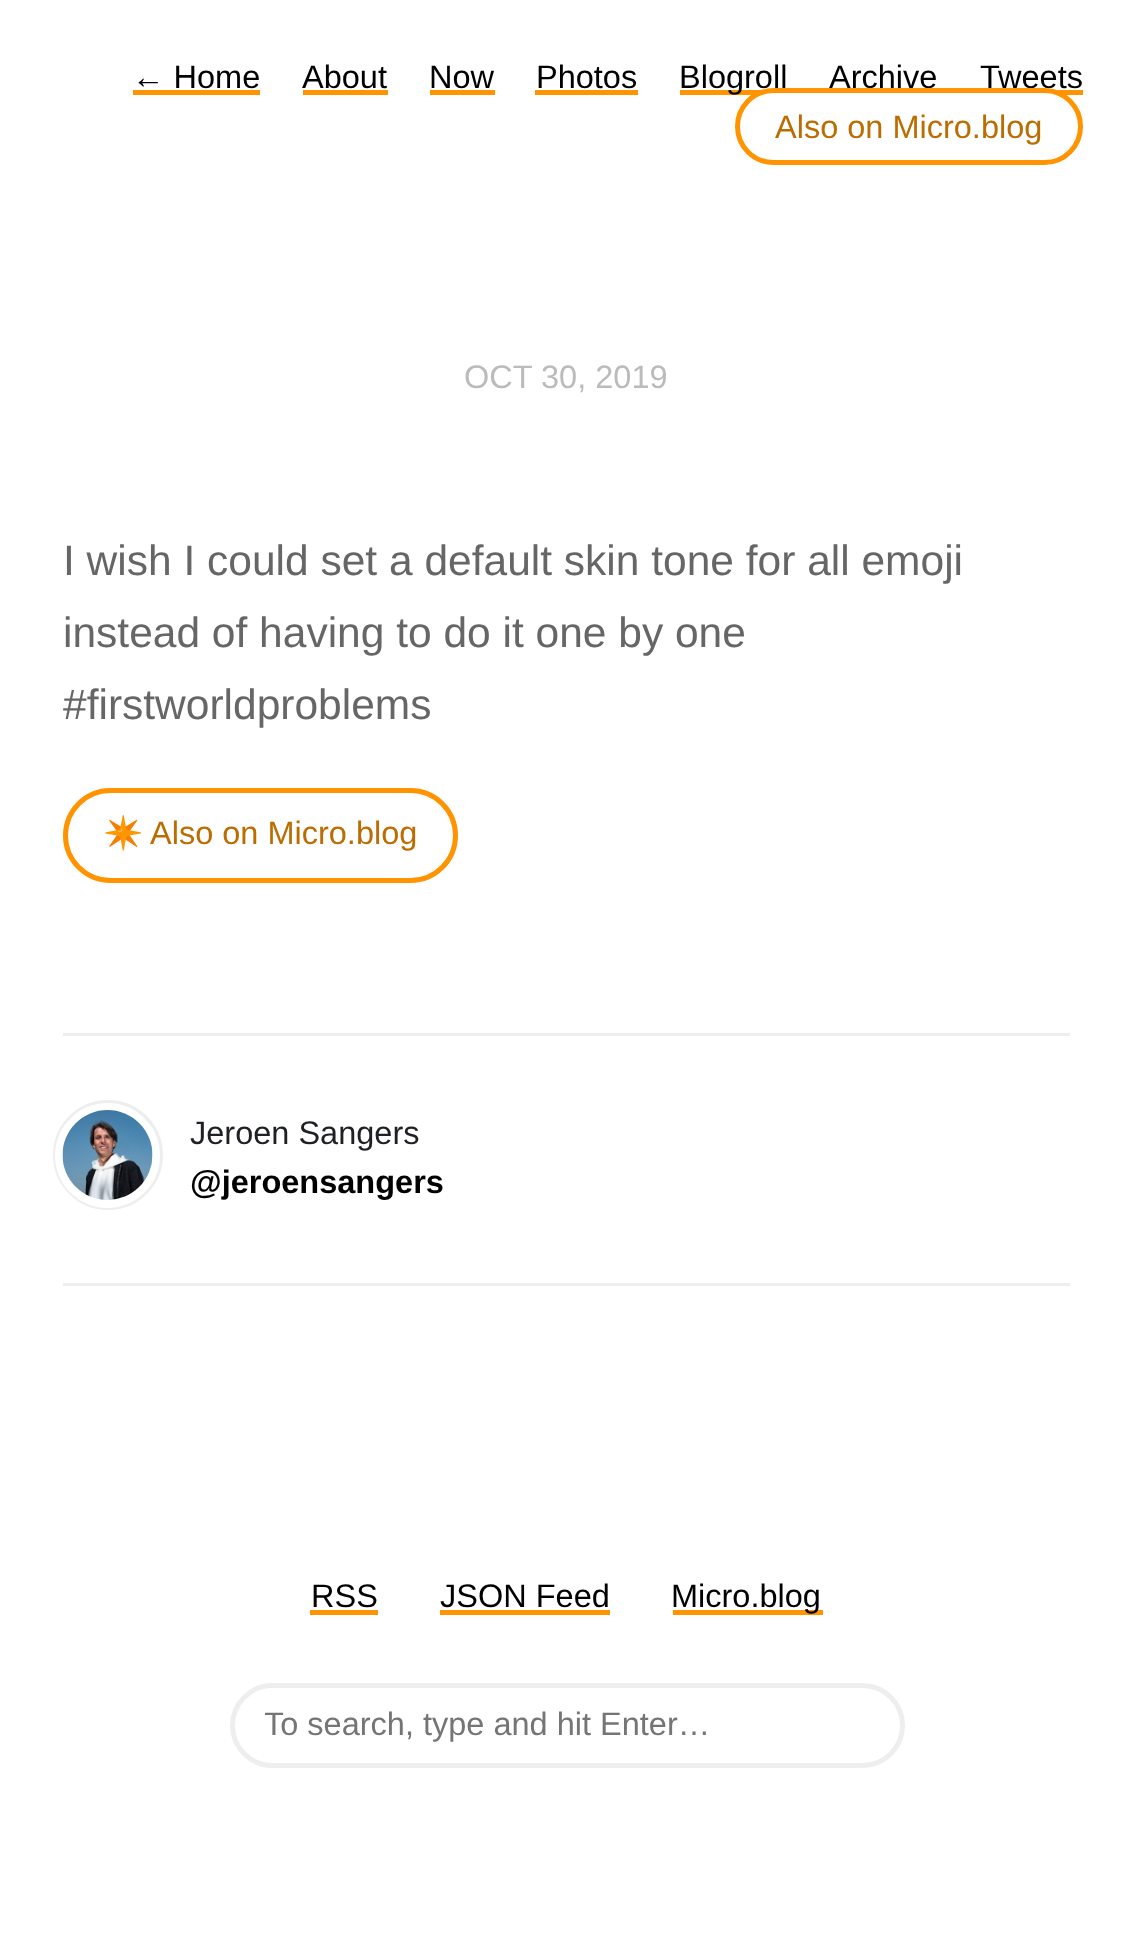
<svg xmlns="http://www.w3.org/2000/svg" width="1131" height="1957" viewBox="0 0 1131 1957">
  <defs>
    <clipPath id="clip1"><path d="M265 1705h630v38H265z"/></clipPath>
  </defs>
  <rect width="100%" height="100%" fill="#fff"/>
  <path d="M133 90h127v5H133z" fill="#ff9300"/>
  <path d="M303 90h85v5H303z" fill="#ff9300"/>
  <path d="M430 90h65v5H430z" fill="#ff9300"/>
  <path d="M535 90h103v5H535z" fill="#ff9300"/>
  <path d="M680 90h82v5H680z" fill="#ff9300"/>
  <path d="M1056 90h27v5H1056z" fill="#ff9300"/>
  <rect x="65.5" y="790.5" width="390" height="90" rx="45" fill="none" stroke="#ff9300" stroke-width="5"/>
  <path d="M63 1033h1007v3H63z" fill="#eee"/>
  <path d="M63 1283h1007v3H63z" fill="#eee"/>
  <circle cx="108" cy="1155" r="50" fill="none" stroke="#eee" stroke-width="10"/>
  <circle cx="107.5" cy="1155.5" r="48.5" fill="none" stroke="#fff" stroke-width="8"/>
  <image x="62" y="1110" width="91" height="90" href="img/1.png"/>
  <path d="M310 1610h68v5H310z" fill="#ff9300"/>
  <path d="M440 1610h170v5H440z" fill="#ff9300"/>
  <path d="M673 1610h150v5H673z" fill="#ff9300"/>
  <rect x="232.5" y="1685.5" width="670" height="80" rx="40" fill="none" stroke="#eee" stroke-width="5"/>
  <g font-family="Liberation Sans" font-size="32.5" fill="#000">
    <text x="132" y="88">← Home</text>
    <text x="302" y="88">About</text>
    <text x="429" y="88">Now</text>
    <text x="536" y="88">Photos</text>
    <text x="679" y="88">Blogroll</text>
    <text x="829" y="88">Archive</text>
    <text x="980" y="88">Tweets</text>
  </g>
  <rect x="737.5" y="90.5" width="343" height="72" rx="36" fill="#fff" stroke="#ff9300" stroke-width="5"/>
  <text x="775" y="138" font-family="Liberation Sans" font-size="32.5" fill="#bc6d01">Also on Micro.blog</text>
  <text x="464" y="388" font-family="Liberation Sans" font-size="32.5" fill="#bbb">OCT 30, 2019</text>
  <g font-family="Liberation Sans" font-size="42.5" fill="#666">
    <text x="63" y="575">I wish I could set a default skin tone for all emoji</text>
    <text x="63" y="647">instead of having to do it one by one</text>
    <text x="63" y="719">#firstworldproblems</text>
  </g>
  <text x="103" y="844" font-family="Noto Color Emoji" font-size="32.5" fill="#bc6d01">✴️</text>
  <text x="150" y="844" font-family="Liberation Sans" font-size="32.5" fill="#bc6d01">Also on Micro.blog</text>
  <text x="190" y="1144" font-family="Liberation Sans" font-size="32.5" fill="#1e2025">Jeroen Sangers</text>
  <text x="190" y="1193" font-family="Liberation Sans" font-size="32.5" font-weight="bold" fill="#000">@jeroensangers</text>
  <g font-family="Liberation Sans" font-size="32.5" fill="#000">
    <text x="311" y="1607">RSS</text>
    <text x="440" y="1607">JSON Feed</text>
    <text x="671" y="1607">Micro.blog</text>
  </g>
  <g clip-path="url(#clip1)">
    <text x="264" y="1735" font-family="Liberation Sans" font-size="32.5" fill="#757575">To search, type and hit Enter…</text>
  </g>
</svg>
